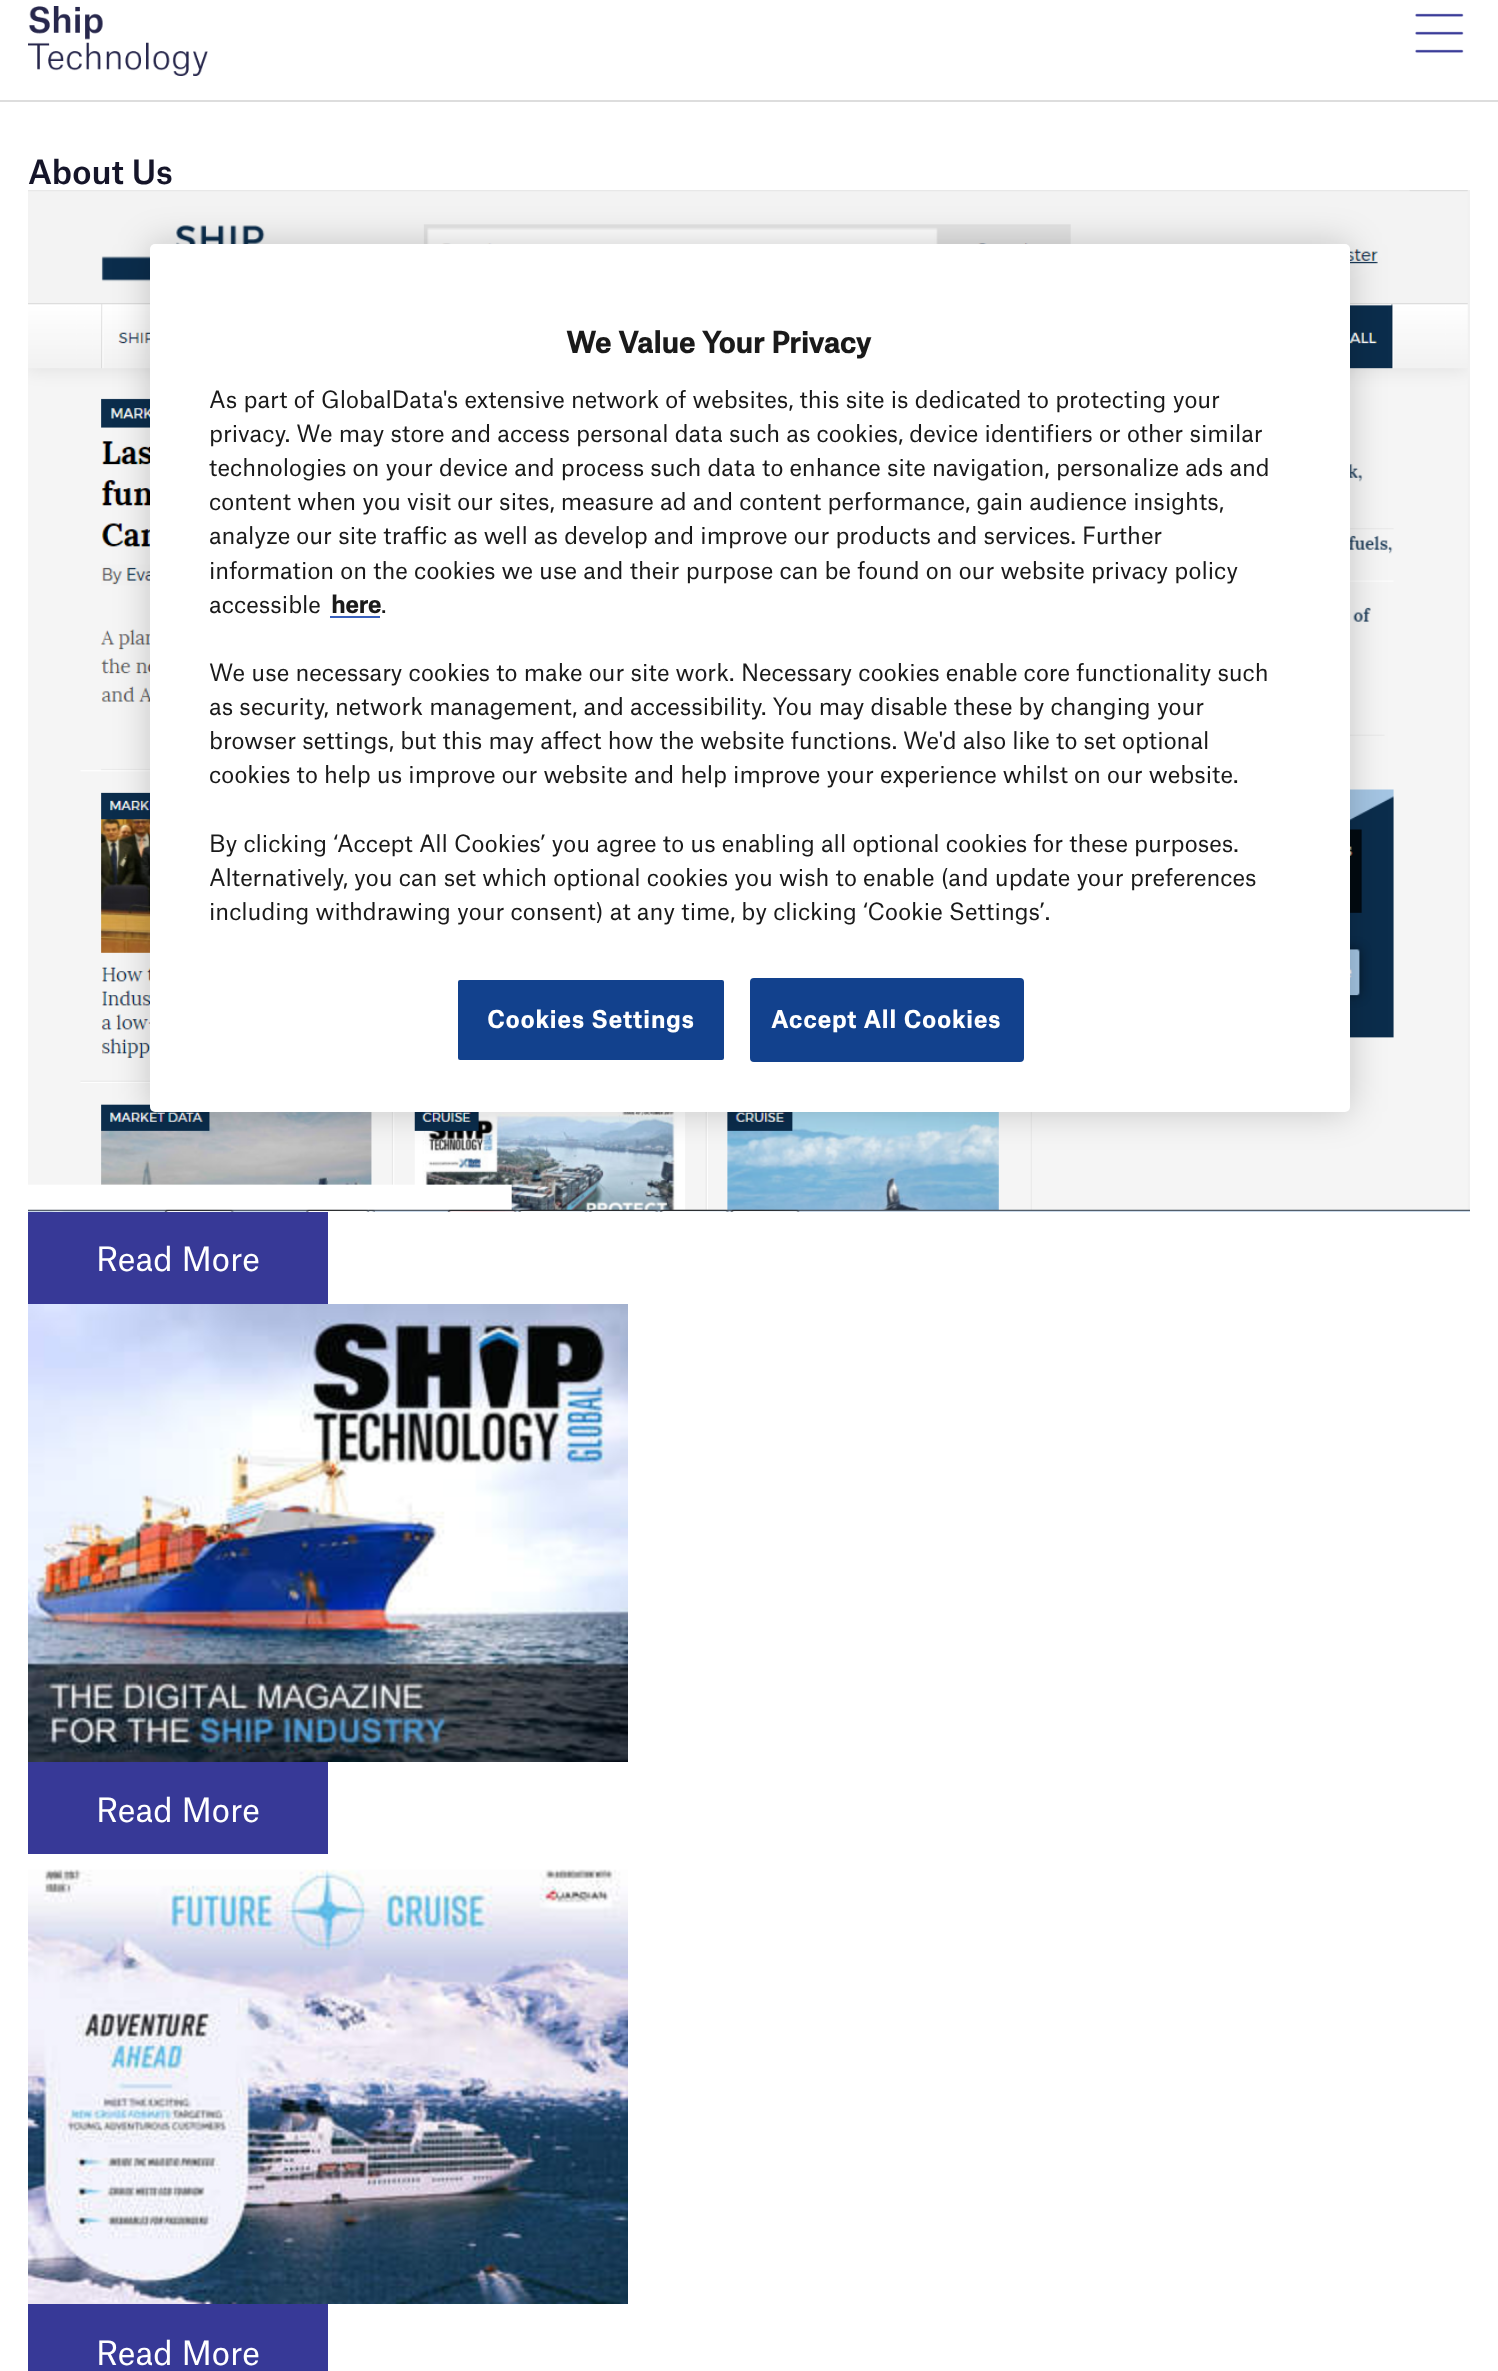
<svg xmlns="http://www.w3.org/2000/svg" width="1498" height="2371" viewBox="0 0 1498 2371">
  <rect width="100%" height="100%" fill="#fff"/>
  <path d="M0 100h1498v2H0z" fill="#ddd"/>
  <image x="28" y="6" width="180" height="70" href="img/1.png"/>
  <image x="1415" y="13" width="49" height="40" href="img/2.png"/>
  <image x="28" y="190" width="1442" height="1022" href="img/3.png"/>
  <path d="M28 1212h300v92H28z" fill="#373997"/>
  <image x="28" y="1304" width="600" height="458" href="img/4.png"/>
  <path d="M28 1762h300v92H28z" fill="#373997"/>
  <image x="28" y="1869" width="600" height="435" href="img/5.png"/>
  <path d="M28 2304h300v67H28z" fill="#373997"/>
  <rect x="150" y="244" width="1200" height="868" rx="5" fill="#00000033" filter="blur(18px)"/>
  <rect x="150" y="244" width="1200" height="868" rx="5" fill="#fff"/>
  <path d="M330 616h50v2H330z" fill="#3860be"/>
  <rect x="457" y="979" width="268" height="82" rx="3" fill="#12418d" stroke="#fff" stroke-width="2"/>
  <rect x="751" y="979" width="272" height="82" rx="3" fill="#12418d" stroke="#12418d" stroke-width="2"/>
  <text x="28" y="184" font-family="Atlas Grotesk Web" font-size="32" font-weight="500" fill="#151529">About Us</text>
  <g font-family="Atlas Grotesk Web" font-size="32" fill="#fff">
    <text x="96" y="1271">Read More</text>
    <text x="96" y="1822">Read More</text>
    <text x="96" y="2365">Read More</text>
  </g>
  <text x="566" y="353" font-family="Atlas Grotesk Web" font-size="28" font-weight="bold" fill="#1a1a1a">We Value Your Privacy</text>
  <g font-family="Atlas Grotesk Web" font-size="22.75" fill="#1a1a1a">
    <text x="209" y="408">As part of GlobalData's extensive network of websites, this site is dedicated to protecting your</text>
    <text x="209" y="442">privacy. We may store and access personal data such as cookies, device identifiers or other similar</text>
    <text x="209" y="476">technologies on your device and process such data to enhance site navigation,</text>
    <text x="1056" y="476">personalize ads and</text>
    <text x="209" y="510">content when you visit our sites, measure ad and content performance, gain audience insights,</text>
    <text x="209" y="544">analyze our site traffic as well as develop and improve our products and services.</text>
    <text x="1082" y="544">Further</text>
    <text x="209" y="579">information on the cookies we use and their purpose can be found on our website privacy policy</text>
    <text x="209" y="613">accessible</text>
  </g>
  <text x="331" y="613" font-family="Atlas Grotesk Web" font-size="22.75" font-weight="bold" fill="#1a1a1a">here</text>
  <g font-family="Atlas Grotesk Web" font-size="22.75" fill="#1a1a1a">
    <text x="381" y="613">.</text>
    <text x="209" y="681">We use necessary cookies to make our site work.</text>
    <text x="741" y="681">Necessary cookies enable core functionality such</text>
    <text x="209" y="715">as security, network management, and accessibility. You may disable these by changing your</text>
    <text x="209" y="749">browser settings, but this may affect how the website functions.</text>
    <text x="903" y="749">We'd also like to set optional</text>
    <text x="209" y="783">cookies to help us improve our website and help improve your experience whilst on our website.</text>
    <text x="209" y="852">By clicking ‘Accept All Cookies’ you agree to us enabling all optional cookies for these purposes.</text>
    <text x="209" y="886">Alternatively, you can set which optional cookies you wish to enable (and update your preferences</text>
    <text x="209" y="920">including withdrawing your consent) at any time, by clicking ‘Cookie Settings’.</text>
  </g>
  <g font-family="Atlas Grotesk Web" font-size="22.75" font-weight="bold" letter-spacing="1.1" fill="#fff">
    <text x="487" y="1028">Cookies Settings</text>
    <text x="771" y="1028">Accept All Cookies</text>
  </g>
</svg>
